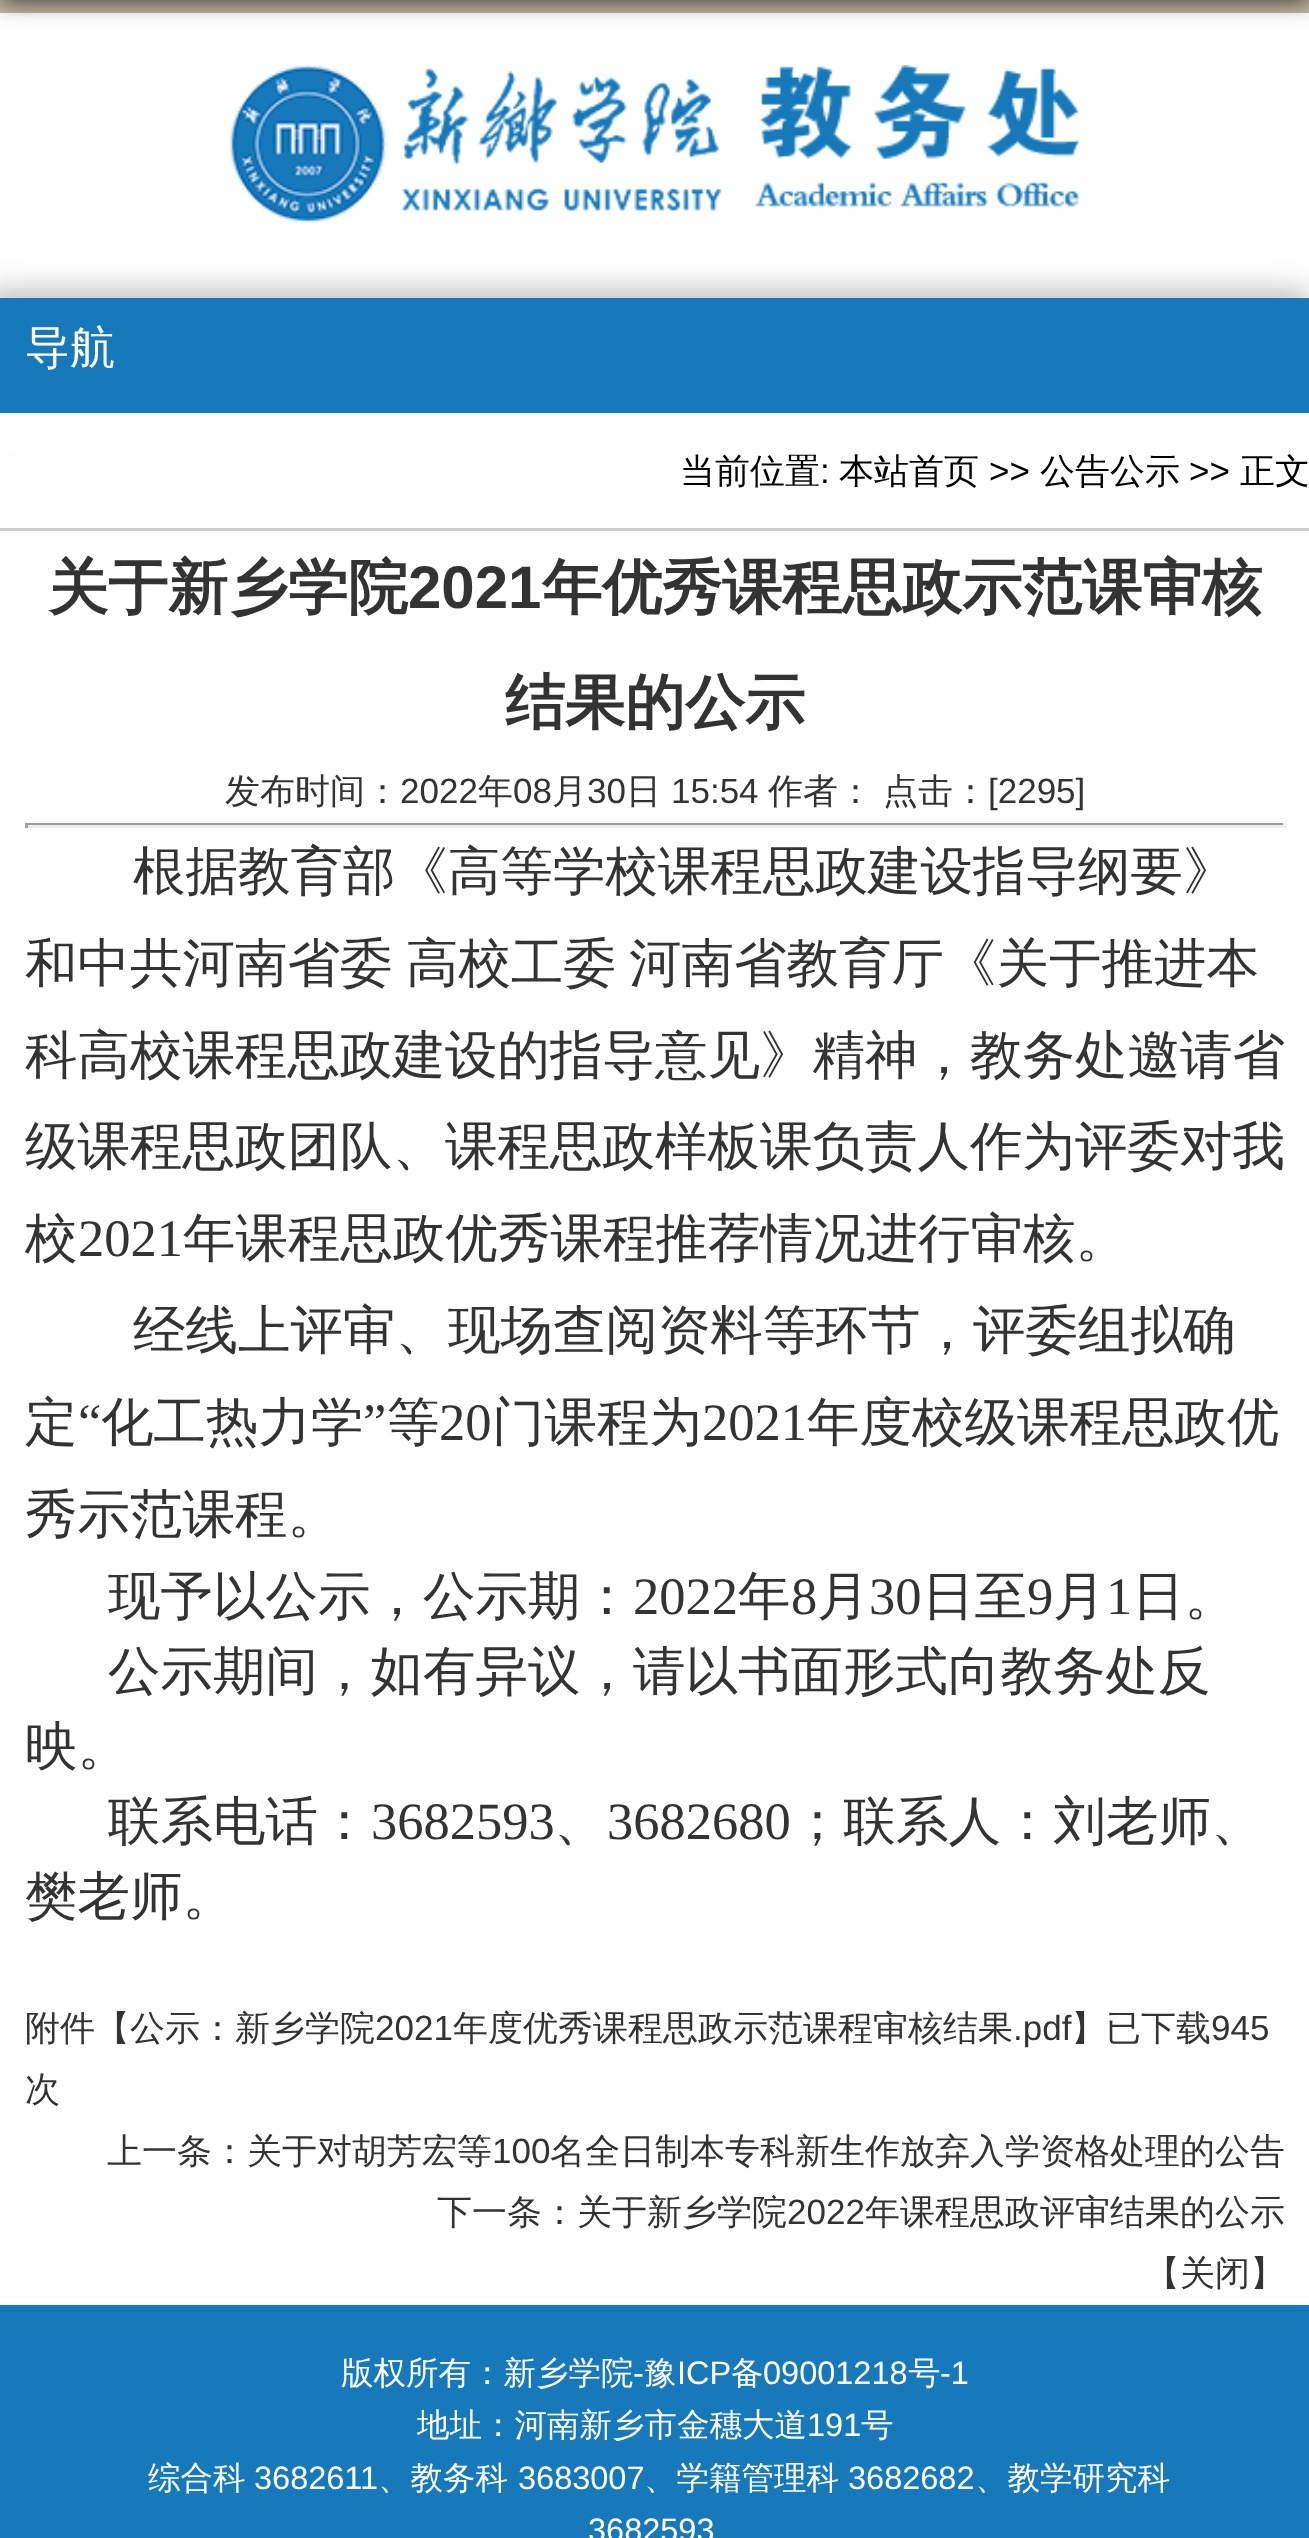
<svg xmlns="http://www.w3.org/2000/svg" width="1309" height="2538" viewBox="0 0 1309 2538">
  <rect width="100%" height="100%" fill="#fff"/>
  <path d="M0 0h1309v13H0z" fill="#c3b8a2"/>
  <image x="230" y="65" width="850" height="158" href="img/1.png"/>
  <path d="M0 -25h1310v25H0z" fill="#000000cc" filter="blur(12.5px)"/>
  <path d="M-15 293h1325v130H-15z" fill="#b3b3b3" filter="blur(16px)"/>
  <path d="M0 298h1309v115H0z" fill="#1779ba"/>
  <path d="M0 413h1309v39H0z" fill="#fff"/>
  <path d="M0 528h1309v3H0z" fill="#ccc"/>
  <path d="M25 823h1260v2H25z" fill="#9f9f9f"/>
  <path d="M1283 823h3v5H1283z" fill="#eee"/>
  <path d="M25 825h1260v3H25z" fill="#eee"/>
  <path d="M25 823h3v5H25z" fill="#9f9f9f"/>
  <path d="M0 2305h1309v233H0z" fill="#1779ba"/>
  <text x="25" y="363" font-family="WenQuanYi Zen Hei" font-size="45" font-weight="500" fill="#fff">导航</text>
  <text x="680" y="483" font-family="WenQuanYi Zen Hei" font-size="35" font-weight="500" fill="#000">当前位置</text>
  <text x="820" y="483" font-family="Liberation Sans" font-size="35" fill="#000">:</text>
  <text x="839" y="483" font-family="WenQuanYi Zen Hei" font-size="35" font-weight="500" fill="#000">本站首页</text>
  <text x="989" y="483" font-family="Liberation Sans" font-size="35" fill="#000">&gt;&gt;</text>
  <text x="1040" y="483" font-family="WenQuanYi Zen Hei" font-size="35" font-weight="500" fill="#000">公告公示</text>
  <text x="1189" y="483" font-family="Liberation Sans" font-size="35" fill="#000">&gt;&gt;</text>
  <text x="1240" y="483" font-family="WenQuanYi Zen Hei" font-size="35" font-weight="500" fill="#000">正文</text>
  <text x="48" y="608" font-family="WenQuanYi Zen Hei" font-size="60" font-weight="bold" fill="#333">关于新乡学院</text>
  <text x="408" y="608" font-family="Liberation Sans" font-size="60" font-weight="bold" fill="#333">2021</text>
  <g font-family="WenQuanYi Zen Hei" font-size="60" font-weight="bold" fill="#333">
    <text x="542" y="608">年优秀课程思政示范课审核</text>
    <text x="505" y="723">结果的公示</text>
  </g>
  <text x="225" y="803" font-family="WenQuanYi Zen Hei" font-size="35" font-weight="500" fill="#333">发布时间：</text>
  <text x="400" y="803" font-family="Liberation Sans" font-size="35" fill="#333">2022</text>
  <text x="478" y="803" font-family="WenQuanYi Zen Hei" font-size="35" font-weight="500" fill="#333">年</text>
  <text x="513" y="803" font-family="Liberation Sans" font-size="35" fill="#333">08</text>
  <text x="552" y="803" font-family="WenQuanYi Zen Hei" font-size="35" font-weight="500" fill="#333">月</text>
  <text x="587" y="803" font-family="Liberation Sans" font-size="35" fill="#333">30</text>
  <text x="626" y="803" font-family="WenQuanYi Zen Hei" font-size="35" font-weight="500" fill="#333">日</text>
  <text x="671" y="803" font-family="Liberation Sans" font-size="35" fill="#333">15:54</text>
  <g font-family="WenQuanYi Zen Hei" font-size="35" font-weight="500" fill="#333">
    <text x="768" y="803">作者：</text>
    <text x="883" y="803">点击：</text>
  </g>
  <text x="988" y="803" font-family="Liberation Sans" font-size="35" fill="#333">[2295]</text>
  <g font-family="WenQuanYi Zen Hei" font-size="52.5" font-weight="500" fill="#333">
    <text x="133" y="889">根据教育部《高等学校课程思政建设指导纲要》</text>
    <text x="25" y="981">和中共河南省委</text>
    <text x="406" y="981">高校工委</text>
    <text x="629" y="981">河南省教育厅《关于推进本</text>
    <text x="25" y="1073">科高校课程思政建设的指导意见》精神，教务处邀请省</text>
    <text x="25" y="1164">级课程思政团队、课程思政样板课负责人作为评委对我</text>
    <text x="25" y="1256">校</text>
  </g>
  <text x="78" y="1256" font-family="Liberation Serif" font-size="52.5" fill="#333">2021</text>
  <g font-family="WenQuanYi Zen Hei" font-size="52.5" font-weight="500" fill="#333">
    <text x="183" y="1256">年课程思政优秀课程推荐情况进行审核。</text>
    <text x="133" y="1348">经线上评审、现场查阅资料等环节，评委组拟确</text>
    <text x="25" y="1440">定</text>
  </g>
  <text x="78" y="1440" font-family="Liberation Serif" font-size="52.5" fill="#333">“</text>
  <text x="101" y="1440" font-family="WenQuanYi Zen Hei" font-size="52.5" font-weight="500" fill="#333">化工热力学</text>
  <text x="363" y="1440" font-family="Liberation Serif" font-size="52.5" fill="#333">”</text>
  <text x="387" y="1440" font-family="WenQuanYi Zen Hei" font-size="52.5" font-weight="500" fill="#333">等</text>
  <text x="439" y="1440" font-family="Liberation Serif" font-size="52.5" fill="#333">20</text>
  <text x="492" y="1440" font-family="WenQuanYi Zen Hei" font-size="52.5" font-weight="500" fill="#333">门课程为</text>
  <text x="702" y="1440" font-family="Liberation Serif" font-size="52.5" fill="#333">2021</text>
  <g font-family="WenQuanYi Zen Hei" font-size="52.5" font-weight="500" fill="#333">
    <text x="807" y="1440">年度校级课程思政优</text>
    <text x="25" y="1532">秀示范课程。</text>
    <text x="108" y="1614">现予以公示，公示期：</text>
  </g>
  <text x="633" y="1614" font-family="Liberation Serif" font-size="52.5" fill="#333">2022</text>
  <text x="738" y="1614" font-family="WenQuanYi Zen Hei" font-size="52.5" font-weight="500" fill="#333">年</text>
  <text x="791" y="1614" font-family="Liberation Serif" font-size="52.5" fill="#333">8</text>
  <text x="817" y="1614" font-family="WenQuanYi Zen Hei" font-size="52.5" font-weight="500" fill="#333">月</text>
  <text x="869" y="1614" font-family="Liberation Serif" font-size="52.5" fill="#333">30</text>
  <text x="922" y="1614" font-family="WenQuanYi Zen Hei" font-size="52.5" font-weight="500" fill="#333">日至</text>
  <text x="1027" y="1614" font-family="Liberation Serif" font-size="52.5" fill="#333">9</text>
  <text x="1053" y="1614" font-family="WenQuanYi Zen Hei" font-size="52.5" font-weight="500" fill="#333">月</text>
  <text x="1106" y="1614" font-family="Liberation Serif" font-size="52.5" fill="#333">1</text>
  <g font-family="WenQuanYi Zen Hei" font-size="52.5" font-weight="500" fill="#333">
    <text x="1132" y="1614">日。</text>
    <text x="108" y="1689">公示期间，如有异议，请以书面形式向教务处反</text>
    <text x="25" y="1764">映。</text>
    <text x="108" y="1839">联系电话：</text>
  </g>
  <text x="371" y="1839" font-family="Liberation Serif" font-size="52.5" fill="#333">3682593</text>
  <text x="554" y="1839" font-family="WenQuanYi Zen Hei" font-size="52.5" font-weight="500" fill="#333">、</text>
  <text x="607" y="1839" font-family="Liberation Serif" font-size="52.5" fill="#333">3682680</text>
  <g font-family="WenQuanYi Zen Hei" font-size="52.5" font-weight="500" fill="#333">
    <text x="791" y="1839">；联系人：刘老师、</text>
    <text x="25" y="1914">樊老师。</text>
  </g>
  <text x="25" y="2040" font-family="WenQuanYi Zen Hei" font-size="35" font-weight="500" fill="#333">附件【公示：新乡学院</text>
  <text x="375" y="2040" font-family="Liberation Sans" font-size="35" fill="#333">2021</text>
  <text x="453" y="2040" font-family="WenQuanYi Zen Hei" font-size="35" font-weight="500" fill="#333">年度优秀课程思政示范课程审核结果</text>
  <text x="1013" y="2040" font-family="Liberation Sans" font-size="35" fill="#333">.pdf</text>
  <text x="1071" y="2040" font-family="WenQuanYi Zen Hei" font-size="35" font-weight="500" fill="#333">】已下载</text>
  <text x="1211" y="2040" font-family="Liberation Sans" font-size="35" fill="#333">945</text>
  <g font-family="WenQuanYi Zen Hei" font-size="35" font-weight="500" fill="#333">
    <text x="25" y="2101">次</text>
    <text x="107" y="2163">上一条：关于对胡芳宏等</text>
  </g>
  <text x="492" y="2163" font-family="Liberation Sans" font-size="35" fill="#333">100</text>
  <g font-family="WenQuanYi Zen Hei" font-size="35" font-weight="500" fill="#333">
    <text x="550" y="2163">名全日制本专科新生作放弃入学资格处理的公告</text>
    <text x="437" y="2224">下一条：关于新乡学院</text>
  </g>
  <text x="787" y="2224" font-family="Liberation Sans" font-size="35" fill="#333">2022</text>
  <g font-family="WenQuanYi Zen Hei" font-size="35" font-weight="500" fill="#333">
    <text x="865" y="2224">年课程思政评审结果的公示</text>
    <text x="1145" y="2285">【关闭】</text>
  </g>
  <text x="341" y="2384" font-family="WenQuanYi Zen Hei" font-size="32.5" font-weight="500" fill="#fff">版权所有：新乡学院</text>
  <text x="633" y="2384" font-family="Liberation Sans" font-size="32.5" fill="#fff">-</text>
  <text x="644" y="2384" font-family="WenQuanYi Zen Hei" font-size="32.5" font-weight="500" fill="#fff">豫</text>
  <text x="677" y="2384" font-family="Liberation Sans" font-size="32.5" fill="#fff">ICP</text>
  <text x="731" y="2384" font-family="WenQuanYi Zen Hei" font-size="32.5" font-weight="500" fill="#fff">备</text>
  <text x="763" y="2384" font-family="Liberation Sans" font-size="32.5" fill="#fff">09001218</text>
  <text x="908" y="2384" font-family="WenQuanYi Zen Hei" font-size="32.5" font-weight="500" fill="#fff">号</text>
  <text x="940" y="2384" font-family="Liberation Sans" font-size="32.5" fill="#fff">-1</text>
  <text x="417" y="2436" font-family="WenQuanYi Zen Hei" font-size="32.5" font-weight="500" fill="#fff">地址：河南新乡市金穗大道</text>
  <text x="807" y="2436" font-family="Liberation Sans" font-size="32.5" fill="#fff">191</text>
  <g font-family="WenQuanYi Zen Hei" font-size="32.5" font-weight="500" fill="#fff">
    <text x="861" y="2436">号</text>
    <text x="148" y="2489">综合科</text>
  </g>
  <text x="254" y="2489" font-family="Liberation Sans" font-size="32.5" fill="#fff">3682611</text>
  <text x="378" y="2489" font-family="WenQuanYi Zen Hei" font-size="32.5" font-weight="500" fill="#fff">、教务科</text>
  <text x="518" y="2489" font-family="Liberation Sans" font-size="32.5" fill="#fff">3683007</text>
  <text x="644" y="2489" font-family="WenQuanYi Zen Hei" font-size="32.5" font-weight="500" fill="#fff">、学籍管理科</text>
  <text x="848" y="2489" font-family="Liberation Sans" font-size="32.5" fill="#fff">3682682</text>
  <text x="975" y="2489" font-family="WenQuanYi Zen Hei" font-size="32.5" font-weight="500" fill="#fff">、教学研究科</text>
  <text x="588" y="2541" font-family="Liberation Sans" font-size="32.5" fill="#fff">3682593</text>
</svg>
